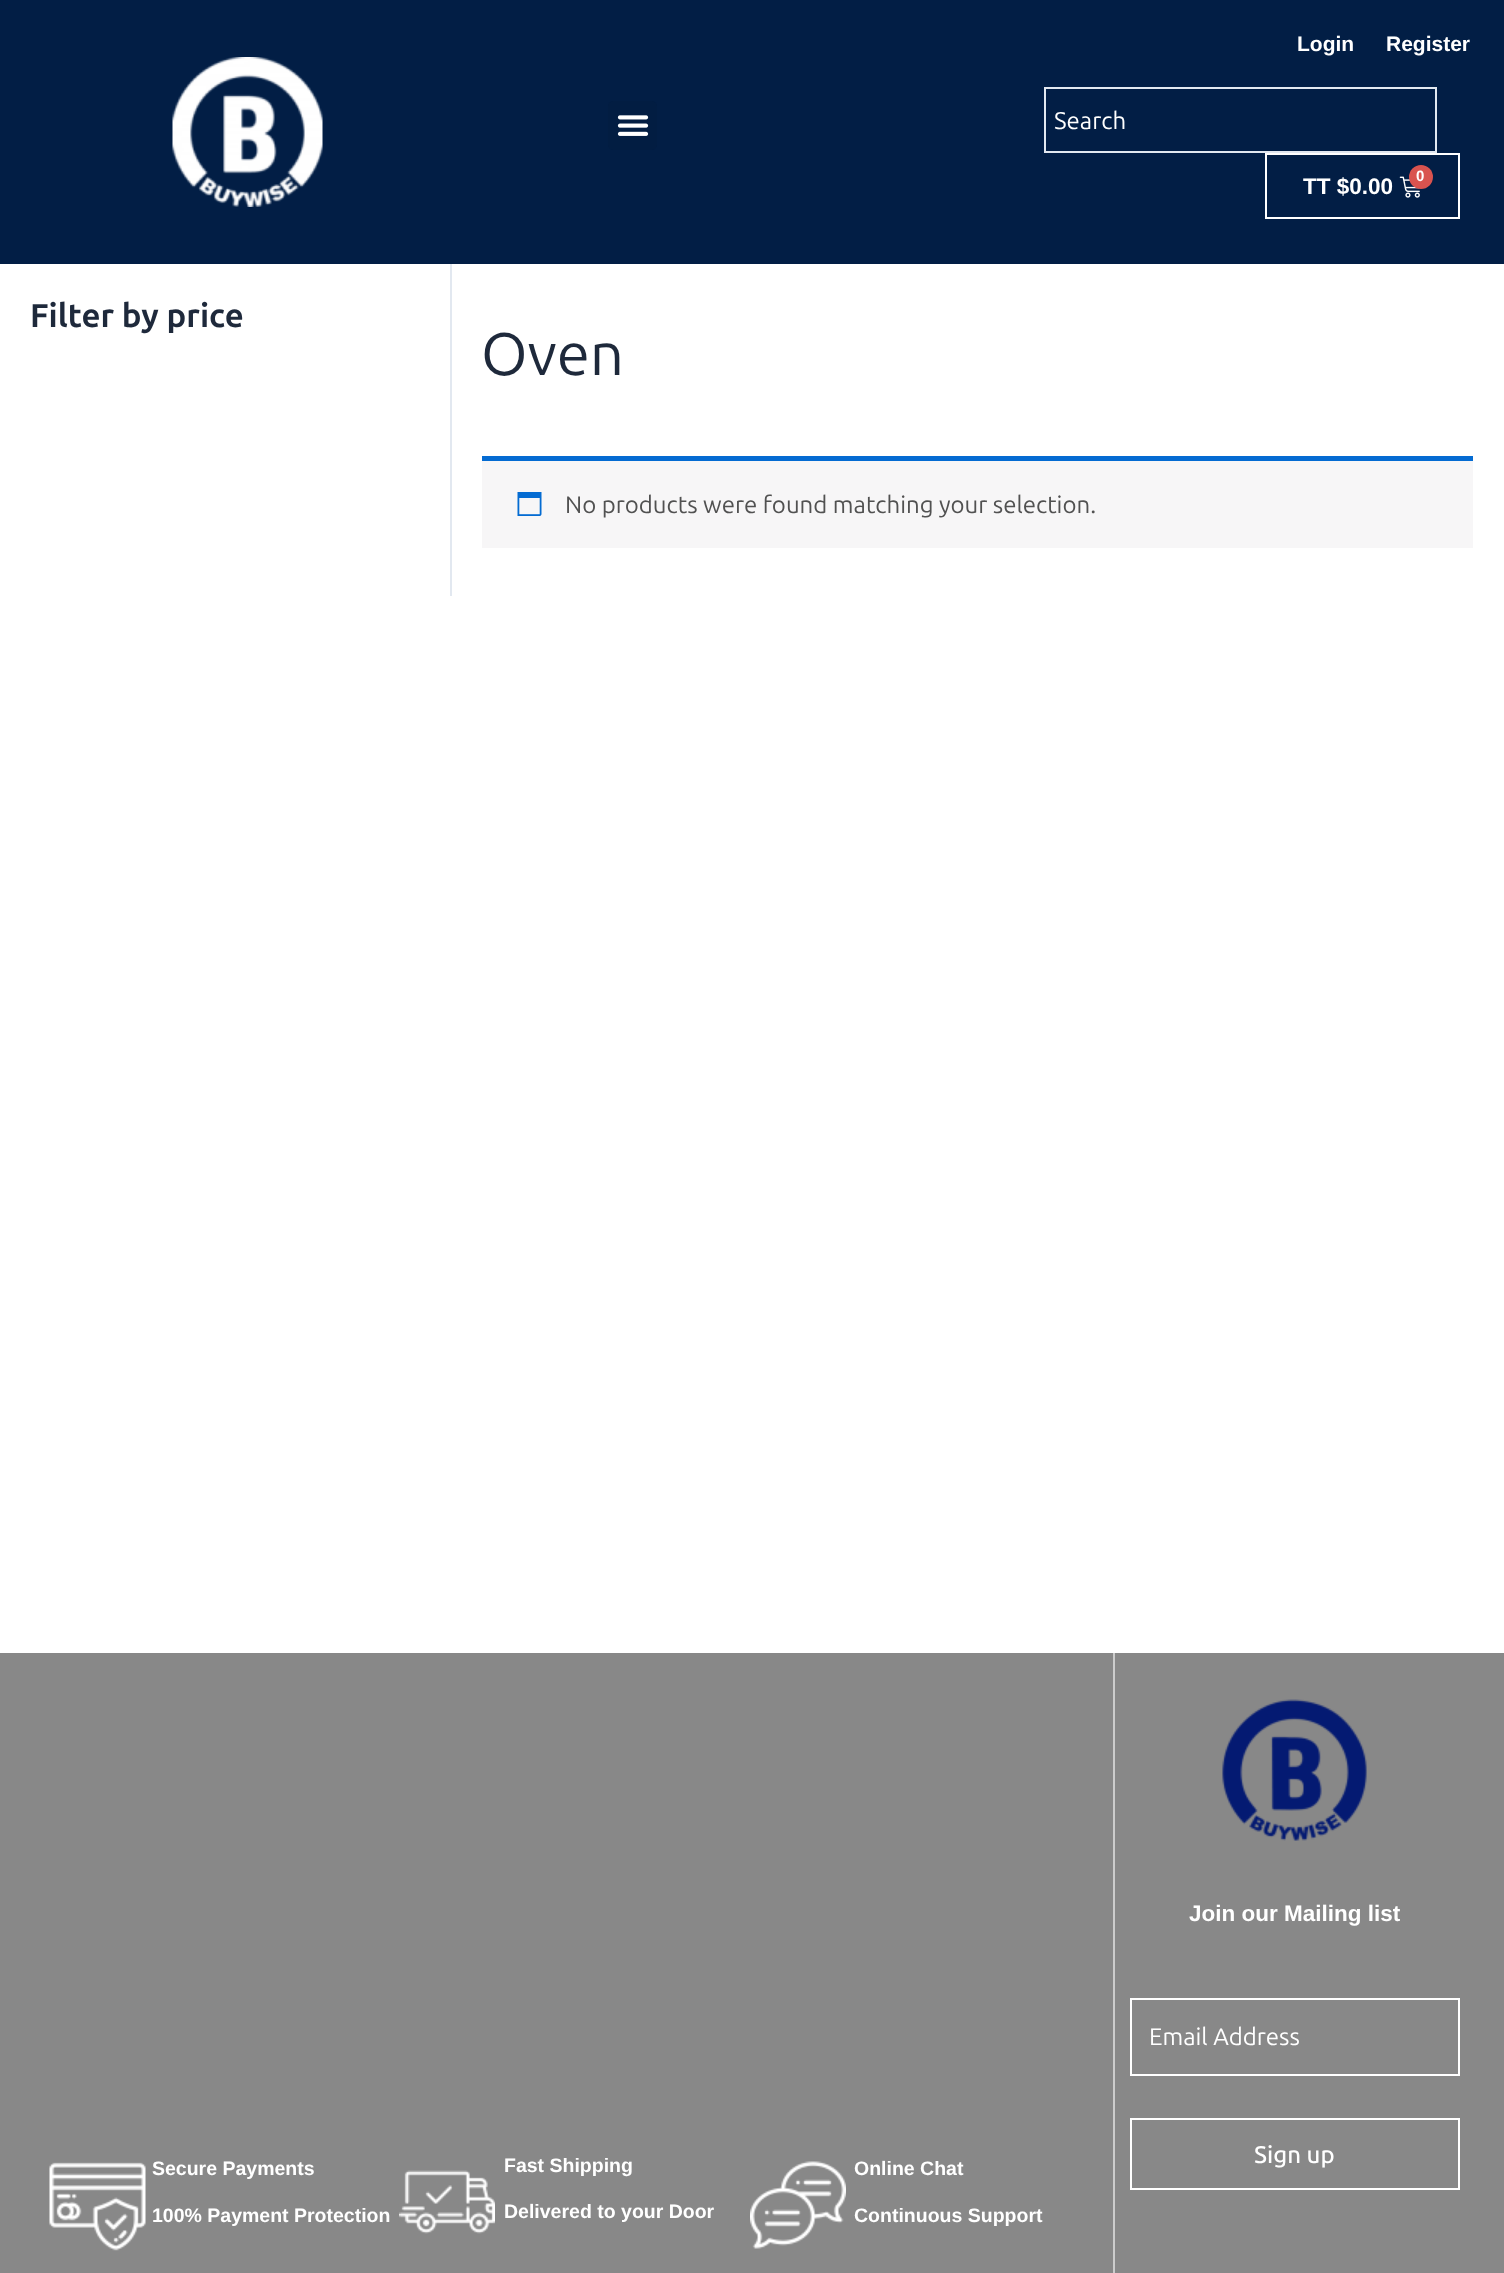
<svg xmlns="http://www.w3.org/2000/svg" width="1504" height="2273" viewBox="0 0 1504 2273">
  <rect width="100%" height="100%" fill="#fff"/>
  <path d="M0 0h1504v264H0z" fill="#021e45"/>
  <image x="172" y="57" width="151" height="150" href="img/1.png"/>
  <rect x="608" y="101" width="49" height="49" rx="5" fill="#021d42"/>
  <image x="617" y="115" width="32" height="21" href="img/2.png"/>
  <path d="M1045 88h391v64H1045z" fill="none" stroke="#e2e8f0" stroke-width="2"/>
  <path d="M1266 154h193v64H1266z" fill="none" stroke="#fff" stroke-width="2"/>
  <image x="1399" y="176" width="21" height="22" href="img/3.png"/>
  <circle cx="1421" cy="177" r="12" fill="#d9534f"/>
  <path d="M450 264h2v332H450z" fill="#e2e8f0"/>
  <path d="M482 461h991v87H482z" fill="#f7f6f7"/>
  <path d="M482 456h991v5H482z" fill="#046bd2"/>
  <image x="517" y="492" width="25" height="24" href="img/4.png"/>
  <path d="M0 1653h1504v620H0z" fill="#888"/>
  <path d="M1113 1653h2v620H1113z" fill="#ccc"/>
  <image x="1222" y="1699" width="145" height="142" href="img/5.png"/>
  <path d="M1131 1999h328v76H1131z" fill="none" stroke="#fff" stroke-width="2"/>
  <path d="M1131 2119h328v70H1131z" fill="none" stroke="#fff" stroke-width="2"/>
  <image x="49" y="2162" width="97" height="89" href="img/6.png"/>
  <image x="399" y="2170" width="96" height="64" href="img/7.png"/>
  <image x="750" y="2161" width="96" height="88" href="img/8.png"/>
  <g font-family="Liberation Sans" font-size="21" font-weight="bold" fill="#fff">
    <text x="1297" y="51">Login</text>
    <text x="1386" y="51">Register</text>
  </g>
  <text x="1054" y="129" font-family="Ubuntu" font-size="24" fill="#fff">Search</text>
  <text x="1303" y="194" font-family="Liberation Sans" font-size="22.5" font-weight="bold" fill="#fff">TT $0.00</text>
  <text x="1416" y="181" font-family="Liberation Sans" font-size="15" font-weight="bold" fill="#fff">0</text>
  <text x="30" y="327" font-family="Ubuntu" font-size="33" font-weight="bold" fill="#1e293b">Filter by price</text>
  <text x="481" y="375" font-family="Ubuntu" font-size="60" fill="#1e293b">Oven</text>
  <text x="565" y="513" font-family="Ubuntu" font-size="24" fill="#515151">No products were found matching your selection.</text>
  <text x="1189" y="1921" font-family="Liberation Sans" font-size="22.5" font-weight="bold" fill="#fff">Join our Mailing list</text>
  <text x="1149" y="2045" font-family="Ubuntu" font-size="24" fill="#fff">Email Address</text>
  <text x="1254" y="2163" font-family="Ubuntu" font-size="24" font-weight="500" fill="#fff">Sign up</text>
  <g font-family="Liberation Sans" font-size="19.5" font-weight="bold" fill="#fff">
    <text x="152" y="2175">Secure Payments</text>
    <text x="152" y="2222">100% Payment Protection</text>
    <text x="504" y="2172">Fast Shipping</text>
    <text x="504" y="2218">Delivered to your Door</text>
    <text x="854" y="2175">Online Chat</text>
    <text x="854" y="2222">Continuous Support</text>
  </g>
</svg>
